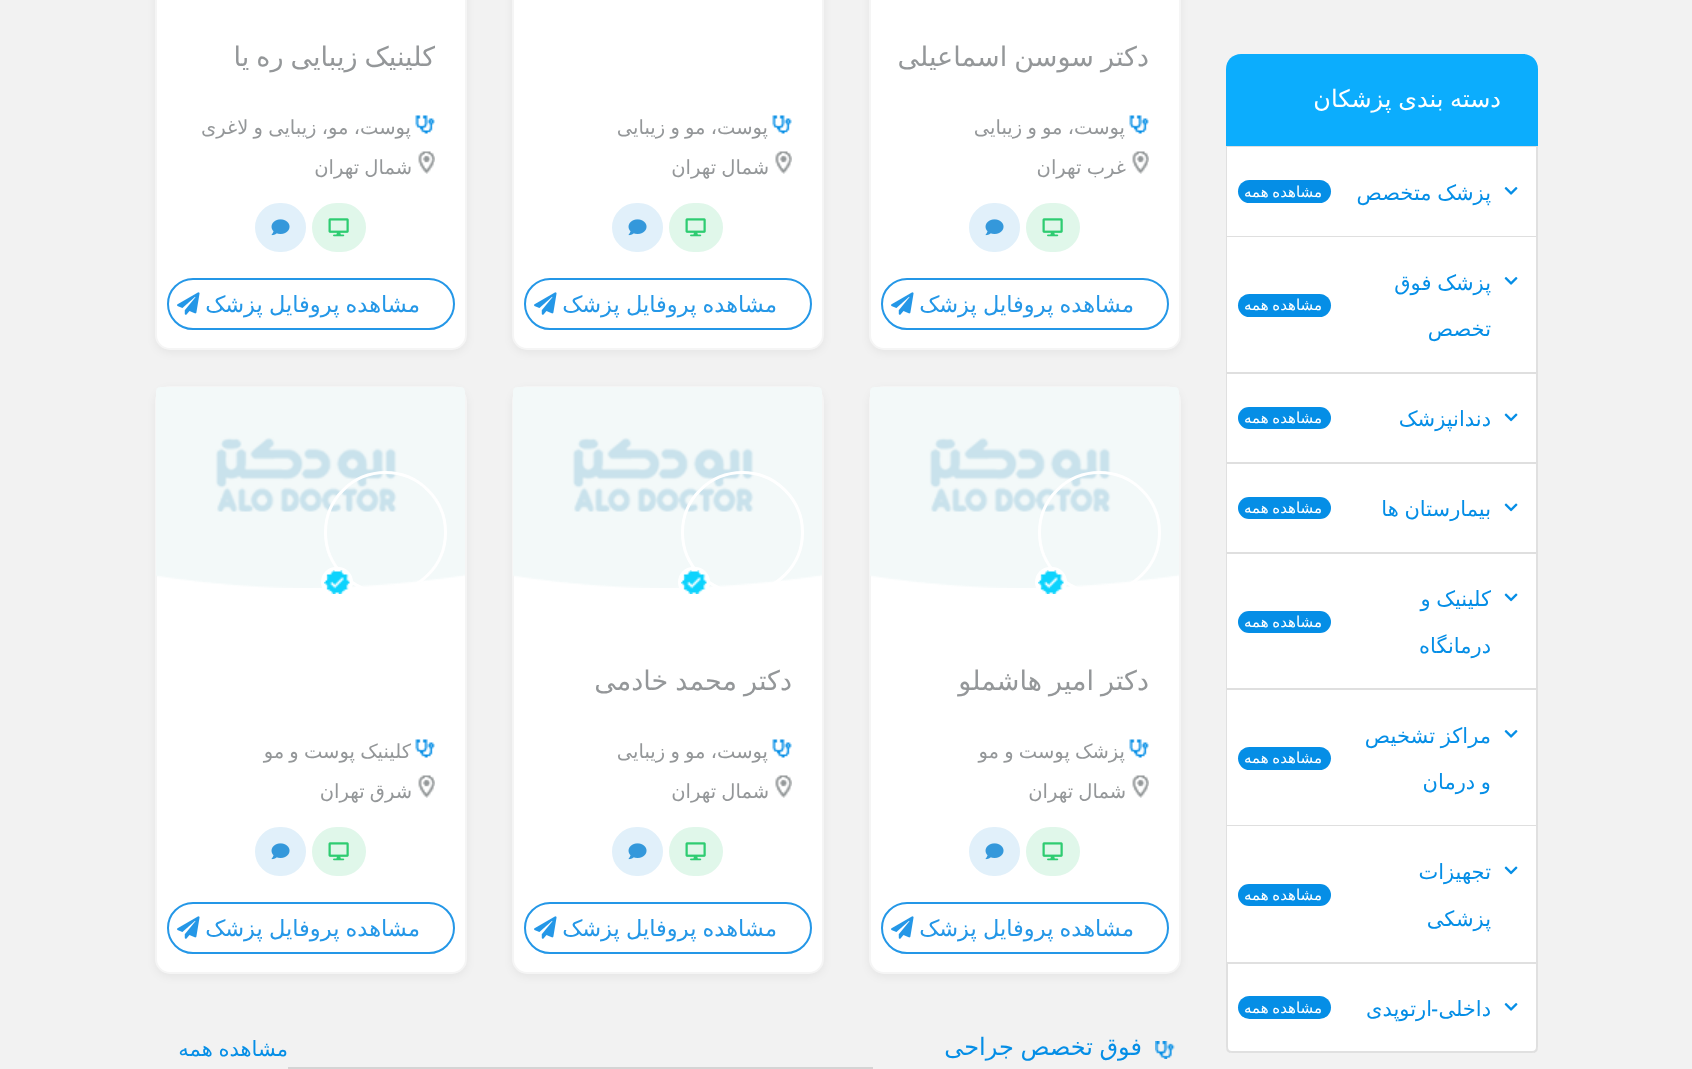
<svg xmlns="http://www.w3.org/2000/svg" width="1692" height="1069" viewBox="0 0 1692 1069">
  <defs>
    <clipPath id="clip1"><path d="M830 35h319v43H830z"/></clipPath>
    <clipPath id="clip2"><path d="M116 35h319v43H116z"/></clipPath>
    <clipPath id="clip3"><path d="M830 659h319v43H830z"/></clipPath>
    <clipPath id="clip4"><path d="M473 659h319v43H473z"/></clipPath>
  </defs>
  <rect width="100%" height="100%" fill="#f2f2f2"/>
  <path d="M1241 54H1523C1531.5 54 1538 60.5 1538 69V146H1226V69C1226 60.5 1232.5 54 1241 54Z" fill="#0cadfd"/>
  <path d="M1226 146h312v816H1226z" fill="#fff"/>
  <path d="M1226 146H1538L1536 147H1227Z" fill="#dfdfdf"/>
  <path d="M1538 146V236H1536V147Z" fill="#0000001f"/>
  <path d="M1226 236V146L1227 147V236Z" fill="#0000001f"/>
  <image x="1504" y="187" width="14" height="8" href="img/1.png"/>
  <rect x="1238" y="180" width="93" height="23" rx="11.5" fill="#058ee6"/>
  <path d="M1226 236H1538L1536 237H1227Z" fill="#dfdfdf"/>
  <path d="M1538 236V372H1536V237Z" fill="#0000001f"/>
  <path d="M1226 372V236L1227 237V372Z" fill="#0000001f"/>
  <image x="1504" y="277" width="14" height="8" href="img/1.png"/>
  <rect x="1238" y="294" width="93" height="23" rx="11.5" fill="#058ee6"/>
  <path d="M1226 372H1538L1536 374H1227Z" fill="#dfdfdf"/>
  <path d="M1538 372V462H1536V374Z" fill="#0000001f"/>
  <path d="M1226 462V372L1227 374V462Z" fill="#0000001f"/>
  <image x="1504" y="413" width="14" height="9" href="img/2.png"/>
  <rect x="1238" y="407" width="93" height="22" rx="11" fill="#058ee6"/>
  <path d="M1226 462H1538L1536 464H1227Z" fill="#dfdfdf"/>
  <path d="M1538 462V552H1536V464Z" fill="#0000001f"/>
  <path d="M1226 552V462L1227 464V552Z" fill="#0000001f"/>
  <image x="1504" y="503" width="14" height="9" href="img/2.png"/>
  <rect x="1238" y="497" width="93" height="22" rx="11" fill="#058ee6"/>
  <path d="M1226 552H1538L1536 554H1227Z" fill="#dfdfdf"/>
  <path d="M1538 552V688H1536V554Z" fill="#0000001f"/>
  <path d="M1226 688V552L1227 554V688Z" fill="#0000001f"/>
  <image x="1504" y="593" width="14" height="9" href="img/2.png"/>
  <rect x="1238" y="611" width="93" height="22" rx="11" fill="#058ee6"/>
  <path d="M1226 688H1538L1536 690H1227Z" fill="#dfdfdf"/>
  <path d="M1538 688V825H1536V690Z" fill="#0000001f"/>
  <path d="M1226 825V688L1227 690V825Z" fill="#0000001f"/>
  <image x="1504" y="730" width="14" height="8" href="img/1.png"/>
  <rect x="1238" y="747" width="93" height="23" rx="11.5" fill="#058ee6"/>
  <path d="M1226 825H1538L1536 826H1227Z" fill="#dfdfdf"/>
  <path d="M1538 825V962H1536V826Z" fill="#0000001f"/>
  <path d="M1226 962V825L1227 826V962Z" fill="#0000001f"/>
  <image x="1504" y="866" width="14" height="9" href="img/2.png"/>
  <rect x="1238" y="884" width="93" height="22" rx="11" fill="#058ee6"/>
  <path d="M1226 962H1538V1047C1538 1050.5 1535.5 1053 1532 1053H1232C1228.5 1053 1226 1050.5 1226 1047Z" fill="#fff"/>
  <path d="M1227 963H1537V1047C1537 1050 1535 1052 1532 1052H1232C1229 1052 1227 1050 1227 1047Z" fill="none" stroke="#0000001f" stroke-width="2"/>
  <image x="1504" y="1003" width="14" height="8" href="img/1.png"/>
  <rect x="1238" y="996" width="93" height="23" rx="11.5" fill="#058ee6"/>
  <rect x="869" y="-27" width="312" height="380" rx="15" fill="#0000000d" filter="blur(4px)"/>
  <rect x="870" y="-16" width="310" height="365" rx="14" fill="#fff" stroke="#f5f5f5" stroke-width="2"/>
  <image x="1129" y="115" width="20" height="19" href="img/3.png"/>
  <image x="1132" y="151" width="17" height="23" href="img/4.png"/>
  <rect x="1027" y="204" width="52" height="47" rx="23.5" fill="#e0f7ea" stroke="#e0f7ea" stroke-width="2"/>
  <image x="1042" y="218" width="21" height="19" href="img/5.png"/>
  <rect x="970" y="204" width="49" height="47" rx="23.5" fill="#e1f0fa" stroke="#e1f0fa" stroke-width="2"/>
  <image x="985" y="219" width="19" height="17" href="img/6.png"/>
  <rect x="882" y="279" width="286" height="50" rx="25" fill="none" stroke="#2497e7" stroke-width="2"/>
  <image x="891" y="292" width="23" height="23" href="img/7.png"/>
  <rect x="512" y="-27" width="312" height="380" rx="15" fill="#0000000d" filter="blur(4px)"/>
  <rect x="513" y="-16" width="310" height="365" rx="14" fill="#fff" stroke="#f5f5f5" stroke-width="2"/>
  <image x="772" y="115" width="20" height="19" href="img/8.png"/>
  <image x="775" y="151" width="17" height="23" href="img/9.png"/>
  <rect x="670" y="204" width="52" height="47" rx="23.5" fill="#e0f7ea" stroke="#e0f7ea" stroke-width="2"/>
  <image x="685" y="218" width="21" height="19" href="img/5.png"/>
  <rect x="613" y="204" width="49" height="47" rx="23.5" fill="#e1f0fa" stroke="#e1f0fa" stroke-width="2"/>
  <image x="628" y="219" width="19" height="17" href="img/6.png"/>
  <rect x="525" y="279" width="286" height="50" rx="25" fill="none" stroke="#2497e7" stroke-width="2"/>
  <image x="534" y="292" width="23" height="23" href="img/7.png"/>
  <rect x="155" y="-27" width="312" height="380" rx="15" fill="#0000000d" filter="blur(4px)"/>
  <rect x="156" y="-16" width="310" height="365" rx="14" fill="#fff" stroke="#f5f5f5" stroke-width="2"/>
  <image x="415" y="115" width="20" height="19" href="img/3.png"/>
  <image x="418" y="151" width="17" height="23" href="img/4.png"/>
  <rect x="313" y="204" width="52" height="47" rx="23.5" fill="#e0f7ea" stroke="#e0f7ea" stroke-width="2"/>
  <image x="328" y="218" width="21" height="19" href="img/5.png"/>
  <rect x="256" y="204" width="49" height="47" rx="23.5" fill="#e1f0fa" stroke="#e1f0fa" stroke-width="2"/>
  <image x="271" y="219" width="19" height="17" href="img/6.png"/>
  <rect x="168" y="279" width="286" height="50" rx="25" fill="none" stroke="#2497e7" stroke-width="2"/>
  <image x="177" y="292" width="23" height="23" href="img/7.png"/>
  <rect x="869" y="389" width="312" height="588" rx="15" fill="#0000000d" filter="blur(4px)"/>
  <rect x="870" y="387" width="310" height="586" rx="14" fill="#fff" stroke="#f5f5f5" stroke-width="2"/>
  <image x="870" y="387" width="309" height="201" href="img/10.png"/>
  <circle cx="1099.5" cy="532.5" r="60" fill="none" stroke="#fff" stroke-width="3"/>
  <rect x="1035" y="567" width="32" height="30" rx="15" fill="#fff"/>
  <image x="1038" y="570" width="26" height="24" href="img/11.png"/>
  <image x="1129" y="739" width="20" height="19" href="img/3.png"/>
  <image x="1132" y="775" width="17" height="23" href="img/4.png"/>
  <rect x="1027" y="828" width="52" height="47" rx="23.5" fill="#e0f7ea" stroke="#e0f7ea" stroke-width="2"/>
  <image x="1042" y="842" width="21" height="19" href="img/5.png"/>
  <rect x="970" y="828" width="49" height="47" rx="23.5" fill="#e1f0fa" stroke="#e1f0fa" stroke-width="2"/>
  <image x="985" y="843" width="19" height="17" href="img/6.png"/>
  <rect x="882" y="903" width="286" height="50" rx="25" fill="none" stroke="#2497e7" stroke-width="2"/>
  <image x="891" y="916" width="23" height="23" href="img/7.png"/>
  <rect x="512" y="389" width="312" height="588" rx="15" fill="#0000000d" filter="blur(4px)"/>
  <rect x="513" y="387" width="310" height="586" rx="14" fill="#fff" stroke="#f5f5f5" stroke-width="2"/>
  <image x="513" y="387" width="309" height="201" href="img/10.png"/>
  <circle cx="742.5" cy="532.5" r="60" fill="none" stroke="#fff" stroke-width="3"/>
  <rect x="678" y="567" width="32" height="30" rx="15" fill="#fff"/>
  <image x="681" y="570" width="26" height="24" href="img/12.png"/>
  <image x="772" y="739" width="20" height="19" href="img/8.png"/>
  <image x="775" y="775" width="17" height="23" href="img/9.png"/>
  <rect x="670" y="828" width="52" height="47" rx="23.5" fill="#e0f7ea" stroke="#e0f7ea" stroke-width="2"/>
  <image x="685" y="842" width="21" height="19" href="img/5.png"/>
  <rect x="613" y="828" width="49" height="47" rx="23.5" fill="#e1f0fa" stroke="#e1f0fa" stroke-width="2"/>
  <image x="628" y="843" width="19" height="17" href="img/6.png"/>
  <rect x="525" y="903" width="286" height="50" rx="25" fill="none" stroke="#2497e7" stroke-width="2"/>
  <image x="534" y="916" width="23" height="23" href="img/7.png"/>
  <rect x="155" y="389" width="312" height="588" rx="15" fill="#0000000d" filter="blur(4px)"/>
  <rect x="156" y="387" width="310" height="586" rx="14" fill="#fff" stroke="#f5f5f5" stroke-width="2"/>
  <image x="156" y="387" width="309" height="201" href="img/10.png"/>
  <circle cx="385.5" cy="532.5" r="60" fill="none" stroke="#fff" stroke-width="3"/>
  <rect x="321" y="567" width="32" height="30" rx="15" fill="#fff"/>
  <image x="324" y="570" width="26" height="24" href="img/13.png"/>
  <image x="415" y="739" width="20" height="19" href="img/3.png"/>
  <image x="418" y="775" width="17" height="23" href="img/4.png"/>
  <rect x="313" y="828" width="52" height="47" rx="23.5" fill="#e0f7ea" stroke="#e0f7ea" stroke-width="2"/>
  <image x="328" y="842" width="21" height="19" href="img/5.png"/>
  <rect x="256" y="828" width="49" height="47" rx="23.5" fill="#e1f0fa" stroke="#e1f0fa" stroke-width="2"/>
  <image x="271" y="843" width="19" height="17" href="img/6.png"/>
  <rect x="168" y="903" width="286" height="50" rx="25" fill="none" stroke="#2497e7" stroke-width="2"/>
  <image x="177" y="916" width="23" height="23" href="img/7.png"/>
  <image x="1155" y="1041" width="20" height="18" href="img/14.png"/>
  <path d="M288 1067h585v2H288z" fill="#d4d4d4"/>
  <text x="1501" y="107" word-spacing="-1" font-family="DejaVu Sans" font-size="24" direction="rtl" fill="#fff">دسته بندی پزشکان</text>
  <text x="1491" y="200" word-spacing="-1" font-family="DejaVu Sans" font-size="21" direction="rtl" fill="#058ee6">پزشک متخصص</text>
  <text x="1322" y="197" word-spacing="-1" font-family="DejaVu Sans" font-size="15" direction="rtl" fill="#fff">مشاهده همه</text>
  <g font-family="DejaVu Sans" font-size="21" direction="rtl" fill="#058ee6">
    <text x="1491" y="290" word-spacing="-1">پزشک فوق</text>
    <text x="1491" y="336">تخصص</text>
  </g>
  <text x="1322" y="310" word-spacing="-1" font-family="DejaVu Sans" font-size="15" direction="rtl" fill="#fff">مشاهده همه</text>
  <text x="1491" y="426" font-family="DejaVu Sans" font-size="21" direction="rtl" fill="#058ee6">دندانپزشک</text>
  <text x="1322" y="423" word-spacing="-1" font-family="DejaVu Sans" font-size="15" direction="rtl" fill="#fff">مشاهده همه</text>
  <text x="1491" y="516" word-spacing="-1" font-family="DejaVu Sans" font-size="21" direction="rtl" fill="#058ee6">بیمارستان ها</text>
  <text x="1322" y="513" word-spacing="-1" font-family="DejaVu Sans" font-size="15" direction="rtl" fill="#fff">مشاهده همه</text>
  <g font-family="DejaVu Sans" font-size="21" direction="rtl" fill="#058ee6">
    <text x="1491" y="606" word-spacing="-1">کلینیک و</text>
    <text x="1491" y="653">درمانگاه</text>
  </g>
  <text x="1322" y="627" word-spacing="-1" font-family="DejaVu Sans" font-size="15" direction="rtl" fill="#fff">مشاهده همه</text>
  <g font-family="DejaVu Sans" font-size="21" direction="rtl" fill="#058ee6">
    <text x="1491" y="743" word-spacing="-1">مراکز تشخیص</text>
    <text x="1491" y="789" word-spacing="-1">و درمان</text>
  </g>
  <text x="1322" y="763" word-spacing="-1" font-family="DejaVu Sans" font-size="15" direction="rtl" fill="#fff">مشاهده همه</text>
  <g font-family="DejaVu Sans" font-size="21" direction="rtl" fill="#058ee6">
    <text x="1491" y="879">تجهیزات</text>
    <text x="1491" y="926">پزشکی</text>
  </g>
  <text x="1322" y="900" word-spacing="-1" font-family="DejaVu Sans" font-size="15" direction="rtl" fill="#fff">مشاهده همه</text>
  <text x="1491" y="1016" font-family="DejaVu Sans" font-size="21" direction="rtl" fill="#058ee6">داخلی</text>
  <text x="1438" y="1016" font-family="Noto Sans" font-size="21" font-weight="500" direction="rtl" fill="#058ee6">-</text>
  <text x="1432" y="1016" font-family="DejaVu Sans" font-size="21" direction="rtl" fill="#058ee6">ارتوپدی</text>
  <text x="1322" y="1013" word-spacing="-1" font-family="DejaVu Sans" font-size="15" direction="rtl" fill="#fff">مشاهده همه</text>
  <g clip-path="url(#clip1)">
    <text x="1149" y="66" word-spacing="-1.5" font-family="DejaVu Sans" font-size="27" direction="rtl" fill="#949799">دکتر سوسن اسماعیلی</text>
  </g>
  <g font-family="DejaVu Sans" font-size="19.5" direction="rtl" fill="#949799">
    <text x="1125" y="134" word-spacing="-1">پوست، مو و زیبایی</text>
    <text x="1126" y="174" word-spacing="-1">غرب تهران</text>
  </g>
  <text x="1134" y="312" word-spacing="-1" font-family="DejaVu Sans" font-size="22.5" direction="rtl" fill="#2497e7">مشاهده پروفایل پزشک</text>
  <g font-family="DejaVu Sans" font-size="19.5" direction="rtl" fill="#949799">
    <text x="768" y="134" word-spacing="-1">پوست، مو و زیبایی</text>
    <text x="769" y="174" word-spacing="-1">شمال تهران</text>
  </g>
  <text x="777" y="312" word-spacing="-1" font-family="DejaVu Sans" font-size="22.5" direction="rtl" fill="#2497e7">مشاهده پروفایل پزشک</text>
  <g clip-path="url(#clip2)">
    <text x="435" y="66" word-spacing="-1.5" font-family="DejaVu Sans" font-size="27" direction="rtl" fill="#949799">کلینیک زیبایی ره یا</text>
  </g>
  <g font-family="DejaVu Sans" font-size="19.5" direction="rtl" fill="#949799">
    <text x="411" y="134" word-spacing="-1">پوست، مو، زیبایی و لاغری</text>
    <text x="412" y="174" word-spacing="-1">شمال تهران</text>
  </g>
  <text x="420" y="312" word-spacing="-1" font-family="DejaVu Sans" font-size="22.5" direction="rtl" fill="#2497e7">مشاهده پروفایل پزشک</text>
  <g clip-path="url(#clip3)">
    <text x="1149" y="690" word-spacing="-1.5" font-family="DejaVu Sans" font-size="27" direction="rtl" fill="#949799">دکتر امیر هاشملو</text>
  </g>
  <g font-family="DejaVu Sans" font-size="19.5" direction="rtl" fill="#949799">
    <text x="1125" y="758" word-spacing="-1">پزشک پوست و مو</text>
    <text x="1126" y="798" word-spacing="-1">شمال تهران</text>
  </g>
  <text x="1134" y="936" word-spacing="-1" font-family="DejaVu Sans" font-size="22.5" direction="rtl" fill="#2497e7">مشاهده پروفایل پزشک</text>
  <g clip-path="url(#clip4)">
    <text x="792" y="690" word-spacing="-1.5" font-family="DejaVu Sans" font-size="27" direction="rtl" fill="#949799">دکتر محمد خادمی</text>
  </g>
  <g font-family="DejaVu Sans" font-size="19.5" direction="rtl" fill="#949799">
    <text x="768" y="758" word-spacing="-1">پوست، مو و زیبایی</text>
    <text x="769" y="798" word-spacing="-1">شمال تهران</text>
  </g>
  <text x="777" y="936" word-spacing="-1" font-family="DejaVu Sans" font-size="22.5" direction="rtl" fill="#2497e7">مشاهده پروفایل پزشک</text>
  <g font-family="DejaVu Sans" font-size="19.5" direction="rtl" fill="#949799">
    <text x="411" y="758" word-spacing="-1">کلینیک پوست و مو</text>
    <text x="412" y="798" word-spacing="-1">شرق تهران</text>
  </g>
  <text x="420" y="936" word-spacing="-1" font-family="DejaVu Sans" font-size="22.5" direction="rtl" fill="#2497e7">مشاهده پروفایل پزشک</text>
  <text x="1142" y="1055" word-spacing="-1" font-family="DejaVu Sans" font-size="24" direction="rtl" fill="#058ee6">فوق تخصص جراحی</text>
  <text x="288" y="1056" word-spacing="-1" font-family="DejaVu Sans" font-size="21" direction="rtl" fill="#058ee6">مشاهده همه</text>
</svg>
